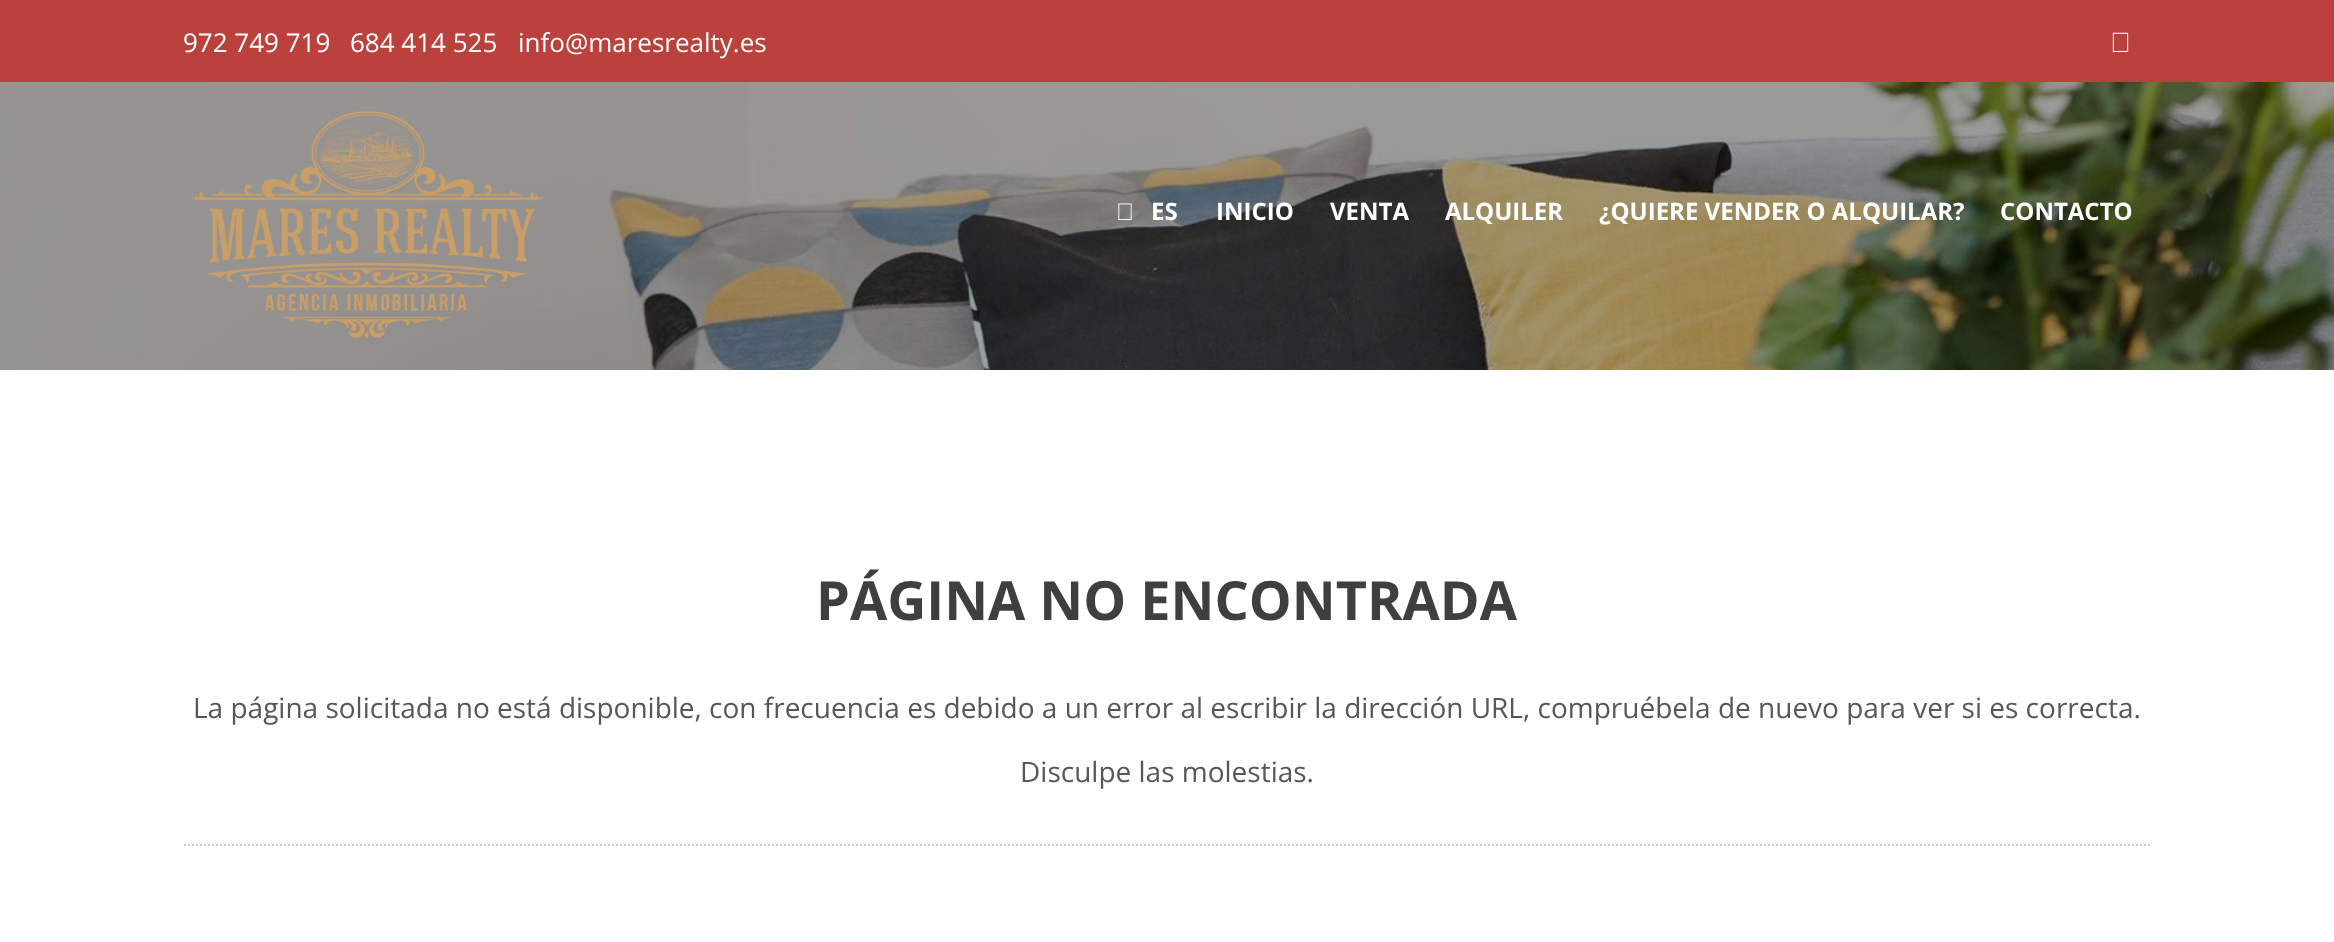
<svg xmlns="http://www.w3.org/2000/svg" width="2334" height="942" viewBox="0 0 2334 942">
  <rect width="100%" height="100%" fill="#fff"/>
  <path d="M0 0h2334v82H0z" fill="#ba413c"/>
  <image x="2112" y="32" width="17" height="20" href="img/1.png"/>
  <image x="0" y="82" width="2334" height="288" href="img/2.png"/>
  <image x="190" y="111" width="353" height="228" href="img/3.png"/>
  <image x="1118" y="203" width="14" height="17" href="img/4.png"/>
  <path d="M184 845H2152" fill="none" stroke="#ccc" stroke-width="2" stroke-dasharray="2 2"/>
  <g font-family="Open Sans" font-size="26" fill="#fff">
    <text x="183" y="52">972 749 719</text>
    <text x="350" y="52">684 414 525</text>
    <text x="518" y="52">info@maresrealty.es</text>
  </g>
  <g font-family="Open Sans" font-size="24" font-weight="bold" fill="#fff">
    <text x="1151" y="220">ES</text>
    <text x="1216" y="220">INICIO</text>
    <text x="1330" y="220">VENTA</text>
    <text x="1445" y="220">ALQUILER</text>
    <text x="1599" y="220">¿QUIERE VENDER O ALQUILAR?</text>
    <text x="2000" y="220">CONTACTO</text>
  </g>
  <text x="816" y="620" font-family="Open Sans" font-size="54" font-weight="bold" fill="#3f3f3f">PÁGINA NO ENCONTRADA</text>
  <g font-family="Open Sans" font-size="28" fill="#575757">
    <text x="193" y="718">La página solicitada no está disponible, con frecuencia es debido a un error al escribir la dirección URL, compruébela de nuevo para ver si es correcta.</text>
    <text x="1020" y="782">Disculpe las molestias.</text>
  </g>
</svg>
